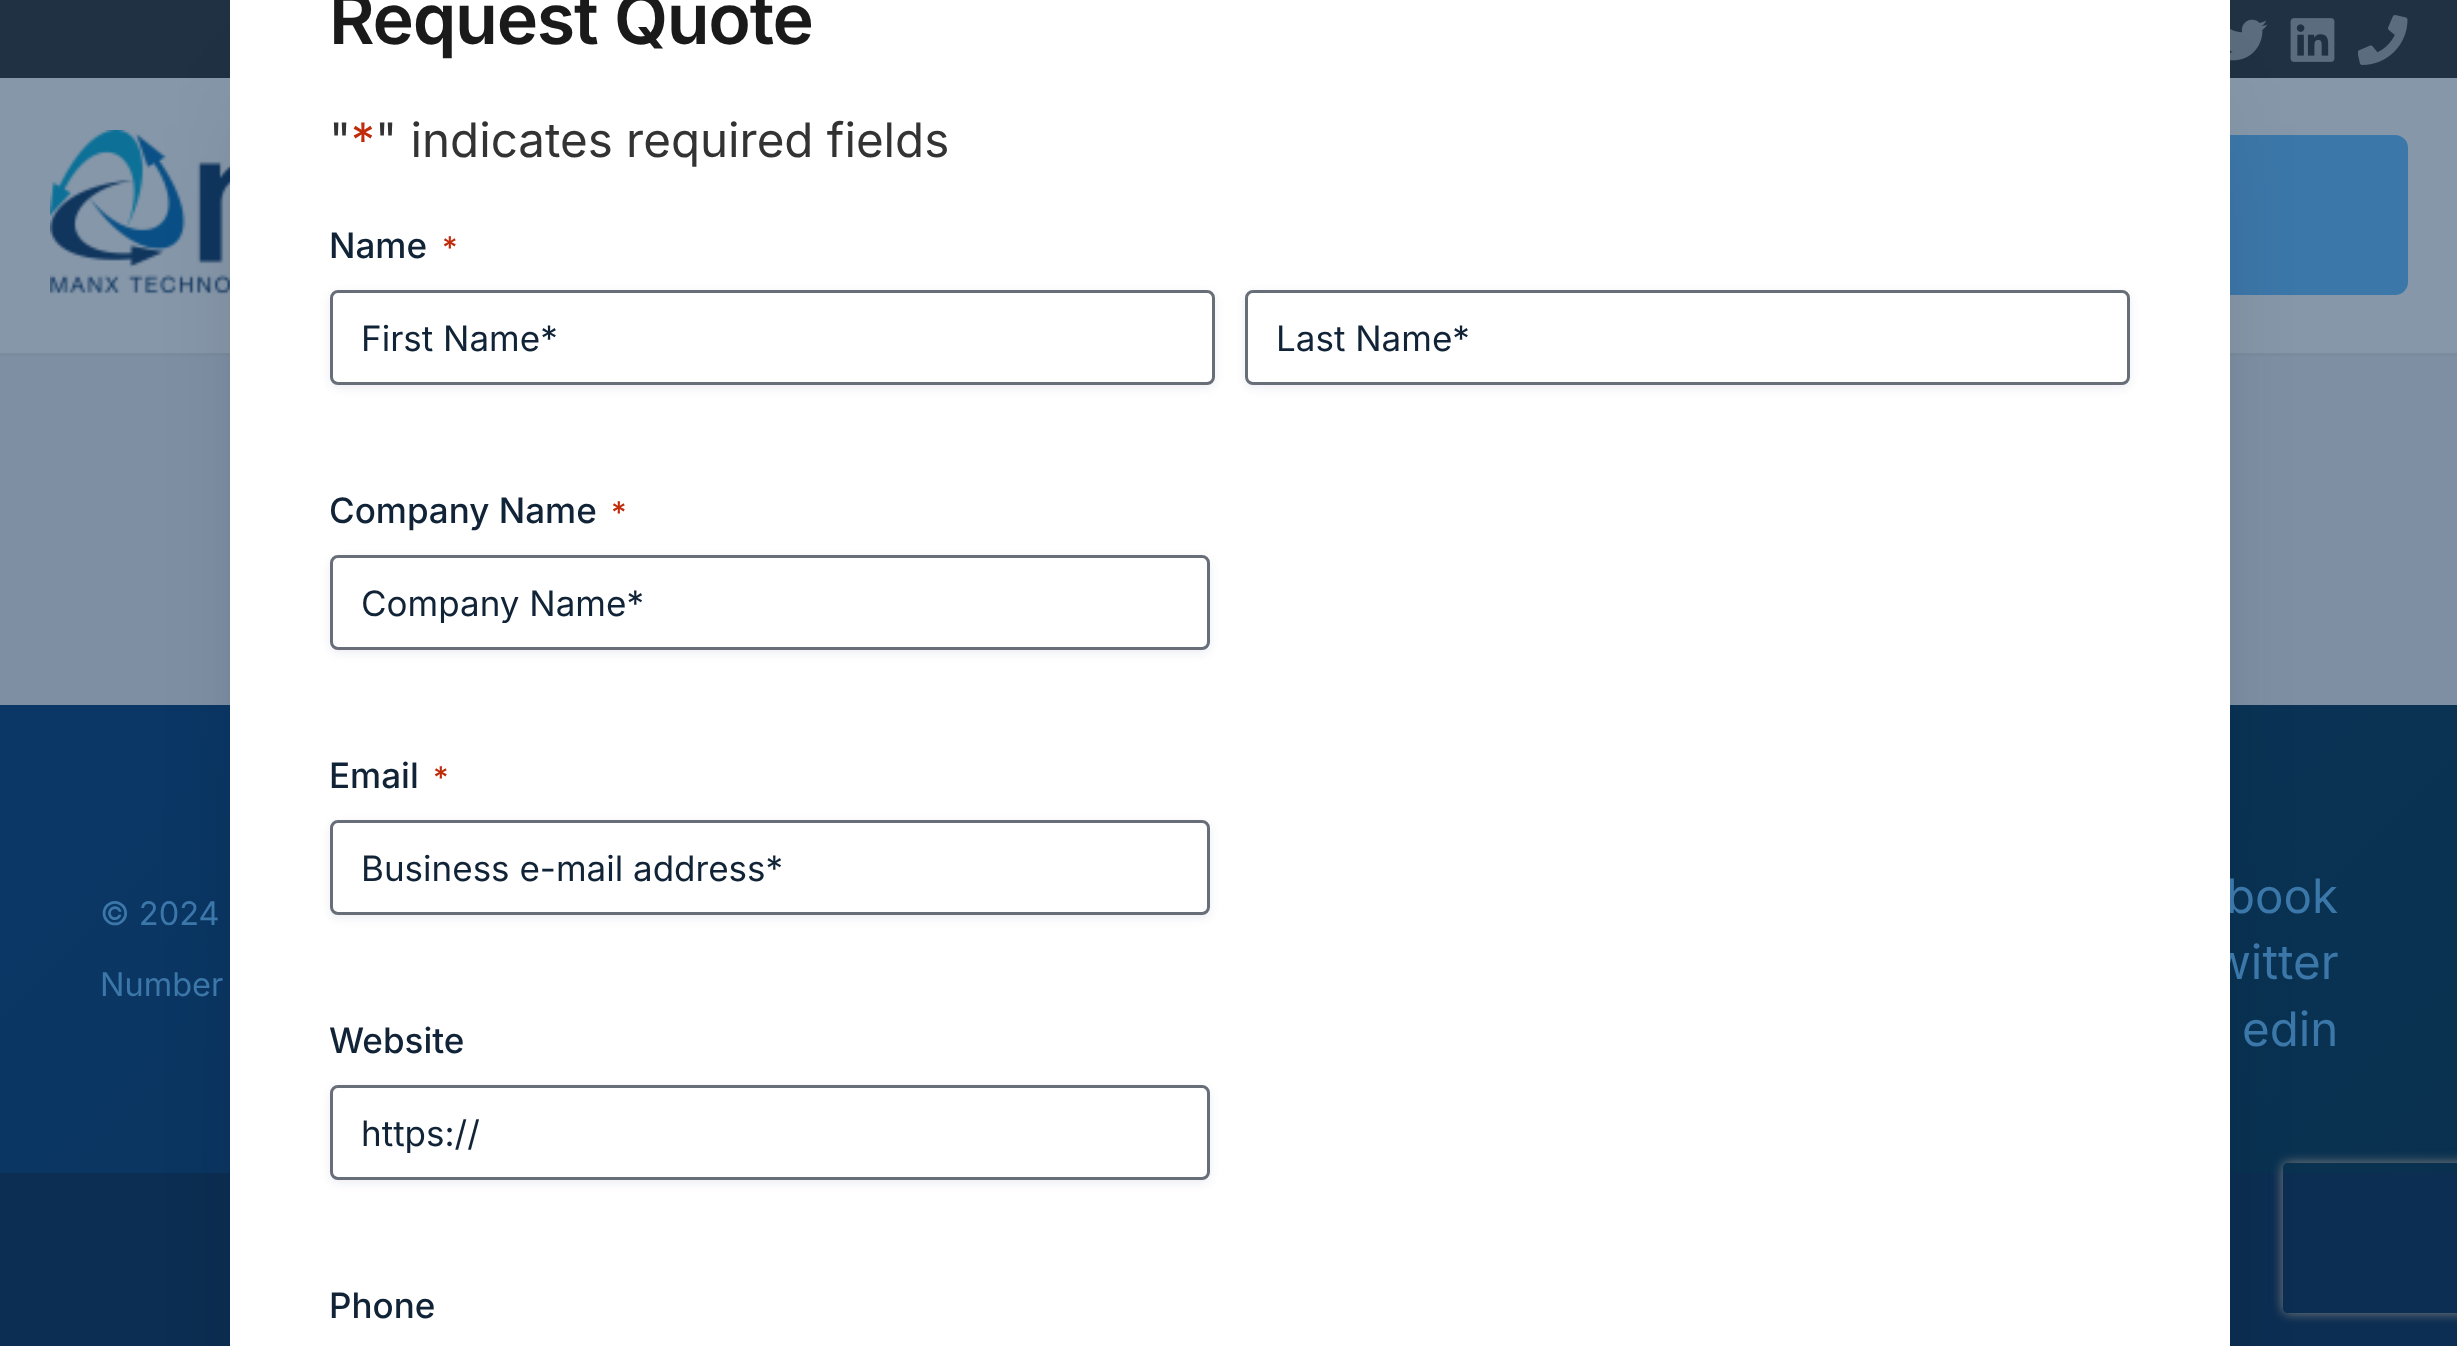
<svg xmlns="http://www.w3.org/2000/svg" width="2457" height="1346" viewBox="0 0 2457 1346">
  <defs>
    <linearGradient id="g1" gradientUnits="userSpaceOnUse" x1="497" y1="208" x2="1960" y2="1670"><stop offset="0" stop-color="#0b3767"/><stop offset="1" stop-color="#09314f"/></linearGradient>
    <clipPath id="clip1"><path d="M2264 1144H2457V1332H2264ZM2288 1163H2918C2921 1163 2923 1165 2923 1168V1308C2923 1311 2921 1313 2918 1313H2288C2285 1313 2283 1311 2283 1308V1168C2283 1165 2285 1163 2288 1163Z" clip-rule="evenodd"/></clipPath>
    <clipPath id="clip2"><path d="M363 1110h815v43H363z"/></clipPath>
    <clipPath id="clip3"><path d="M363 580h815v43H363z"/></clipPath>
  </defs>
  <rect width="100%" height="100%" fill="#7e8fa4"/>
  <path d="M0 0h2457v78H0z" fill="#203143"/>
  <image x="2230" y="19" width="38" height="42" href="img/1.png"/>
  <image x="2290" y="18" width="45" height="44" href="img/2.png"/>
  <path d="M0 78h2457v275H0z" fill="#8697a9"/>
  <path d="M0 353h2457v3H0z" fill="#7b8c9e"/>
  <image x="50" y="130" width="180" height="165" href="img/4.png"/>
  <rect x="2007.5" y="137.5" width="398" height="155" rx="10.5" fill="#3c77a9" stroke="#3c77a9" stroke-width="5"/>
  <path d="M0 705h2457v468H0z" fill="url(#g1)"/>
  <path d="M0 1173h2457v173H0z" fill="#0c2e52"/>
  <path d="M305 125h1850v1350H305z" fill="#00000070" filter="blur(62.5px)"/>
  <g clip-path="url(#clip1)">
    <rect x="2283" y="1163" width="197" height="150" rx="5" fill="#808080" filter="blur(6px)"/>
  </g>
  <image x="2358" y="15" width="50" height="50" href="img/3.png"/>
  <g font-family="Inter" font-size="32.5" fill="#3c77a9">
    <text x="100" y="925">© 2024</text>
    <text x="100" y="996">Number</text>
  </g>
  <g font-family="Inter" font-size="47.5" fill="#3c77a9">
    <text x="2226" y="913">book</text>
    <text x="2212" y="979">witter</text>
  </g>
  <path d="M230 0h2000v1346H230z" fill="#fff"/>
  <text x="329" y="1318" font-family="Inter" font-size="35" font-weight="500" fill="#112337">Phone</text>
  <rect x="330" y="1088" width="880" height="95" rx="8" fill="#12196114" filter="blur(5px)"/>
  <rect x="331.5" y="1086.5" width="877" height="92" rx="6.5" fill="#fff" stroke="#686e77" stroke-width="3"/>
  <g clip-path="url(#clip2)">
    <text x="361" y="1146" font-family="Inter" font-size="35" fill="#112337">https://</text>
  </g>
  <text x="329" y="1053" font-family="Inter" font-size="35" font-weight="500" fill="#112337">Website</text>
  <rect x="330" y="823" width="880" height="95" rx="8" fill="#12196114" filter="blur(5px)"/>
  <rect x="331.5" y="821.5" width="877" height="92" rx="6.5" fill="#fff" stroke="#686e77" stroke-width="3"/>
  <text x="361" y="881" font-family="Inter" font-size="35" fill="#112337">Business e-mail address*</text>
  <text x="433" y="788" font-family="Inter" font-size="30" font-weight="500" fill="#c02b0a">*</text>
  <text x="329" y="788" font-family="Inter" font-size="35" font-weight="500" fill="#112337">Email</text>
  <rect x="330" y="558" width="880" height="95" rx="8" fill="#12196114" filter="blur(5px)"/>
  <rect x="331.5" y="556.5" width="877" height="92" rx="6.5" fill="#fff" stroke="#686e77" stroke-width="3"/>
  <g clip-path="url(#clip3)">
    <text x="361" y="616" font-family="Inter" font-size="35" fill="#112337">Company Name*</text>
  </g>
  <text x="611" y="523" font-family="Inter" font-size="30" font-weight="500" fill="#c02b0a">*</text>
  <text x="329" y="523" font-family="Inter" font-size="35" font-weight="500" fill="#112337">Company Name</text>
  <rect x="1245" y="293" width="885" height="95" rx="8" fill="#12196114" filter="blur(5px)"/>
  <rect x="1246.5" y="291.5" width="882" height="92" rx="6.5" fill="#fff" stroke="#686e77" stroke-width="3"/>
  <text x="1276" y="351" font-family="Inter" font-size="35" fill="#112337">Last Name*</text>
  <rect x="330" y="293" width="885" height="95" rx="8" fill="#12196114" filter="blur(5px)"/>
  <rect x="331.5" y="291.5" width="882" height="92" rx="6.5" fill="#fff" stroke="#686e77" stroke-width="3"/>
  <text x="361" y="351" font-family="Inter" font-size="35" fill="#112337">First Name*</text>
  <text x="442" y="258" font-family="Inter" font-size="30" font-weight="500" fill="#c02b0a">*</text>
  <text x="329" y="258" font-family="Inter" font-size="35" font-weight="500" fill="#112337">Name</text>
  <text x="375" y="157" font-family="Inter" font-size="47.5" fill="#333">" indicates required fields</text>
  <text x="351" y="157" font-family="Inter" font-size="47.5" fill="#c02b0a">*</text>
  <text x="329" y="157" font-family="Inter" font-size="47.5" fill="#333">"</text>
  <text x="329" y="44" font-family="Inter" font-size="70" font-weight="600" letter-spacing="-1.25" fill="#1a1a1a">Request Quote</text>
  <text x="2242" y="1046" font-family="Inter" font-size="47.5" fill="#3c77a9">edin</text>
</svg>
